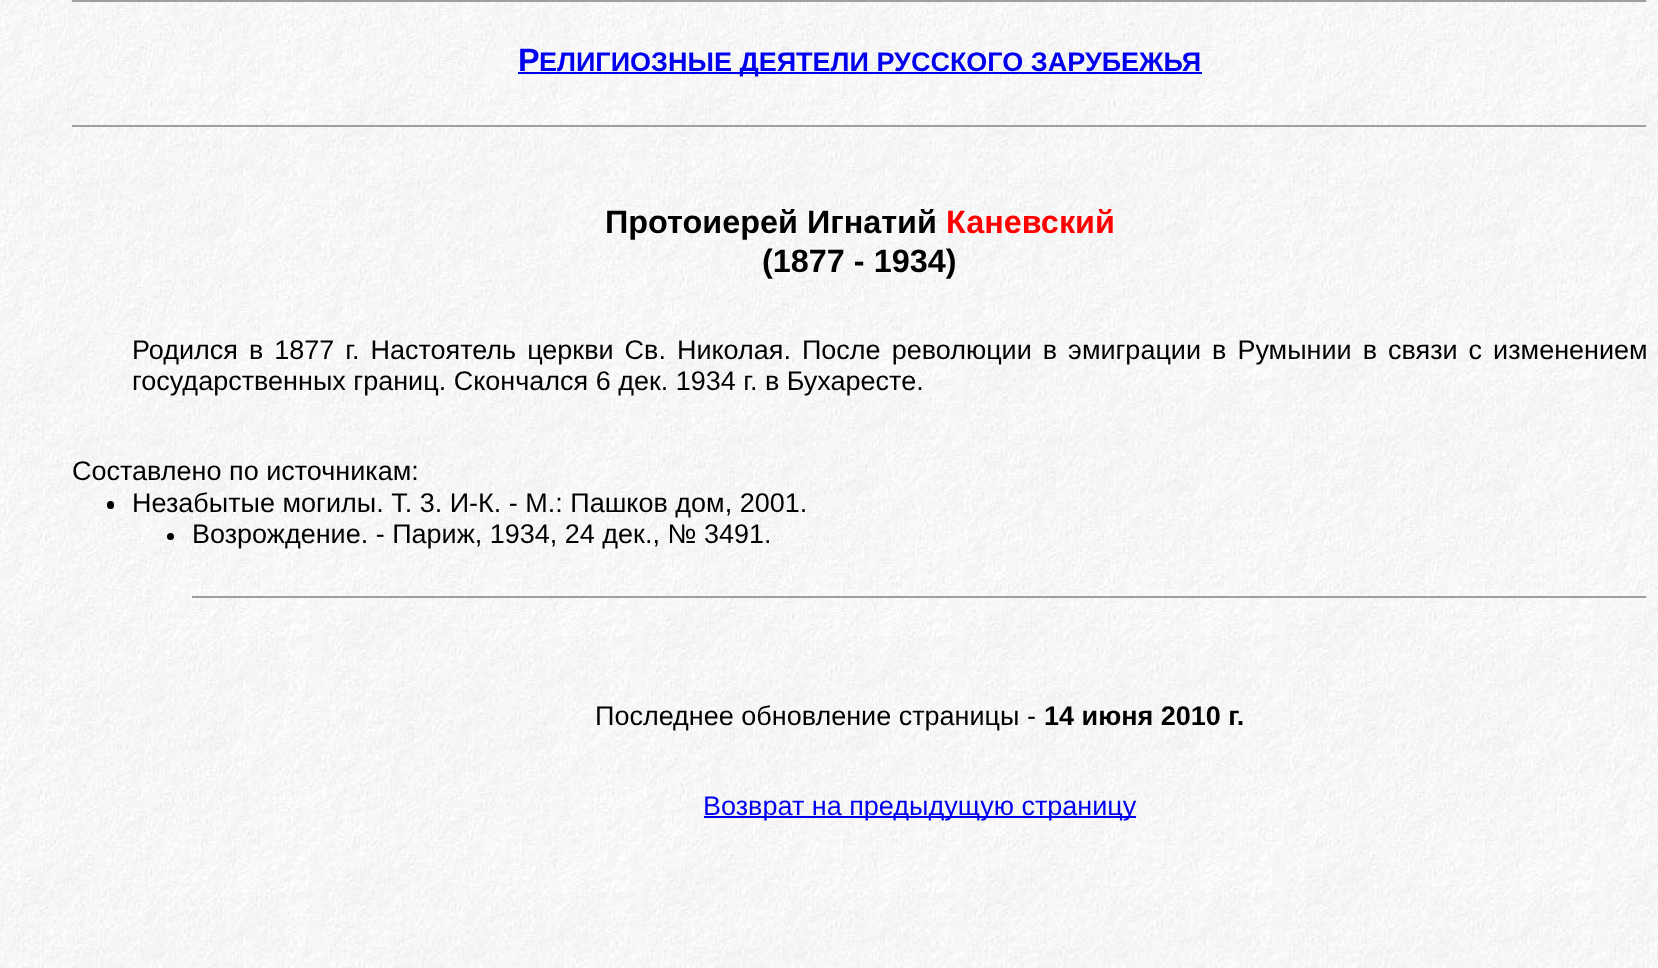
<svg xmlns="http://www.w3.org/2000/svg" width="1658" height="968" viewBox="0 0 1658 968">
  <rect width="100%" height="100%" fill="#fff"/>
  <image x="0" y="0" width="1658" height="968" href="img/1.png"/>
  <path d="M72 0h1575v2H72z" fill="#9f9f9f"/>
  <path d="M1646 0h2v2H1646z" fill="#eee"/>
  <path d="M518 72h684v2H518z" fill="#00e"/>
  <path d="M72 125h1575v2H72z" fill="#9f9f9f"/>
  <path d="M1646 125h2v2H1646z" fill="#eee"/>
  <rect x="107" y="501" width="7" height="8" rx="3.5" fill="#000"/>
  <circle cx="170.5" cy="536.5" r="3.5" fill="#000"/>
  <path d="M192 596h1455v2H192z" fill="#9f9f9f"/>
  <path d="M1646 596h2v2H1646z" fill="#eee"/>
  <path d="M704 816h432v2H704z" fill="#00e"/>
  <text x="518" y="71" font-family="Liberation Sans" font-size="32.4" font-weight="bold" fill="#00e">Р</text>
  <text x="539" y="71" font-family="Liberation Sans" font-size="27" font-weight="bold" fill="#00e">ЕЛИГИОЗНЫЕ ДЕЯТЕЛИ РУССКОГО ЗАРУБЕЖЬЯ</text>
  <text x="605" y="233" font-family="Liberation Sans" font-size="32.4" font-weight="bold" fill="#000">Протоиерей Игнатий</text>
  <text x="946" y="233" font-family="Liberation Sans" font-size="32.4" font-weight="bold" fill="#f00">Каневский</text>
  <text x="762" y="272" font-family="Liberation Sans" font-size="32.4" font-weight="bold" fill="#000">(1877 - 1934)</text>
  <g font-family="Liberation Sans" font-size="27" fill="#000">
    <text x="132" y="359" word-spacing="3.5">Родился в 1877 г. Настоятель церкви Св. Николая. После революции в эмиграции в Румынии в связи с изменением</text>
    <text x="132" y="390">государственных границ. Скончался 6 дек. 1934 г. в Бухаресте.</text>
    <text x="72" y="480">Составлено по источникам:</text>
    <text x="132" y="512">Незабытые могилы. Т. 3. И-К. - М.: Пашков дом, 2001.</text>
    <text x="192" y="543">Возрождение. - Париж, 1934, 24 дек., № 3491.</text>
    <text x="595" y="725">Последнее обновление страницы -</text>
  </g>
  <text x="1044" y="725" font-family="Liberation Sans" font-size="27" font-weight="bold" fill="#000">14 июня 2010 г.</text>
  <text x="703" y="815" font-family="Liberation Sans" font-size="27" fill="#00e">Возврат на предыдущую страницу</text>
</svg>
